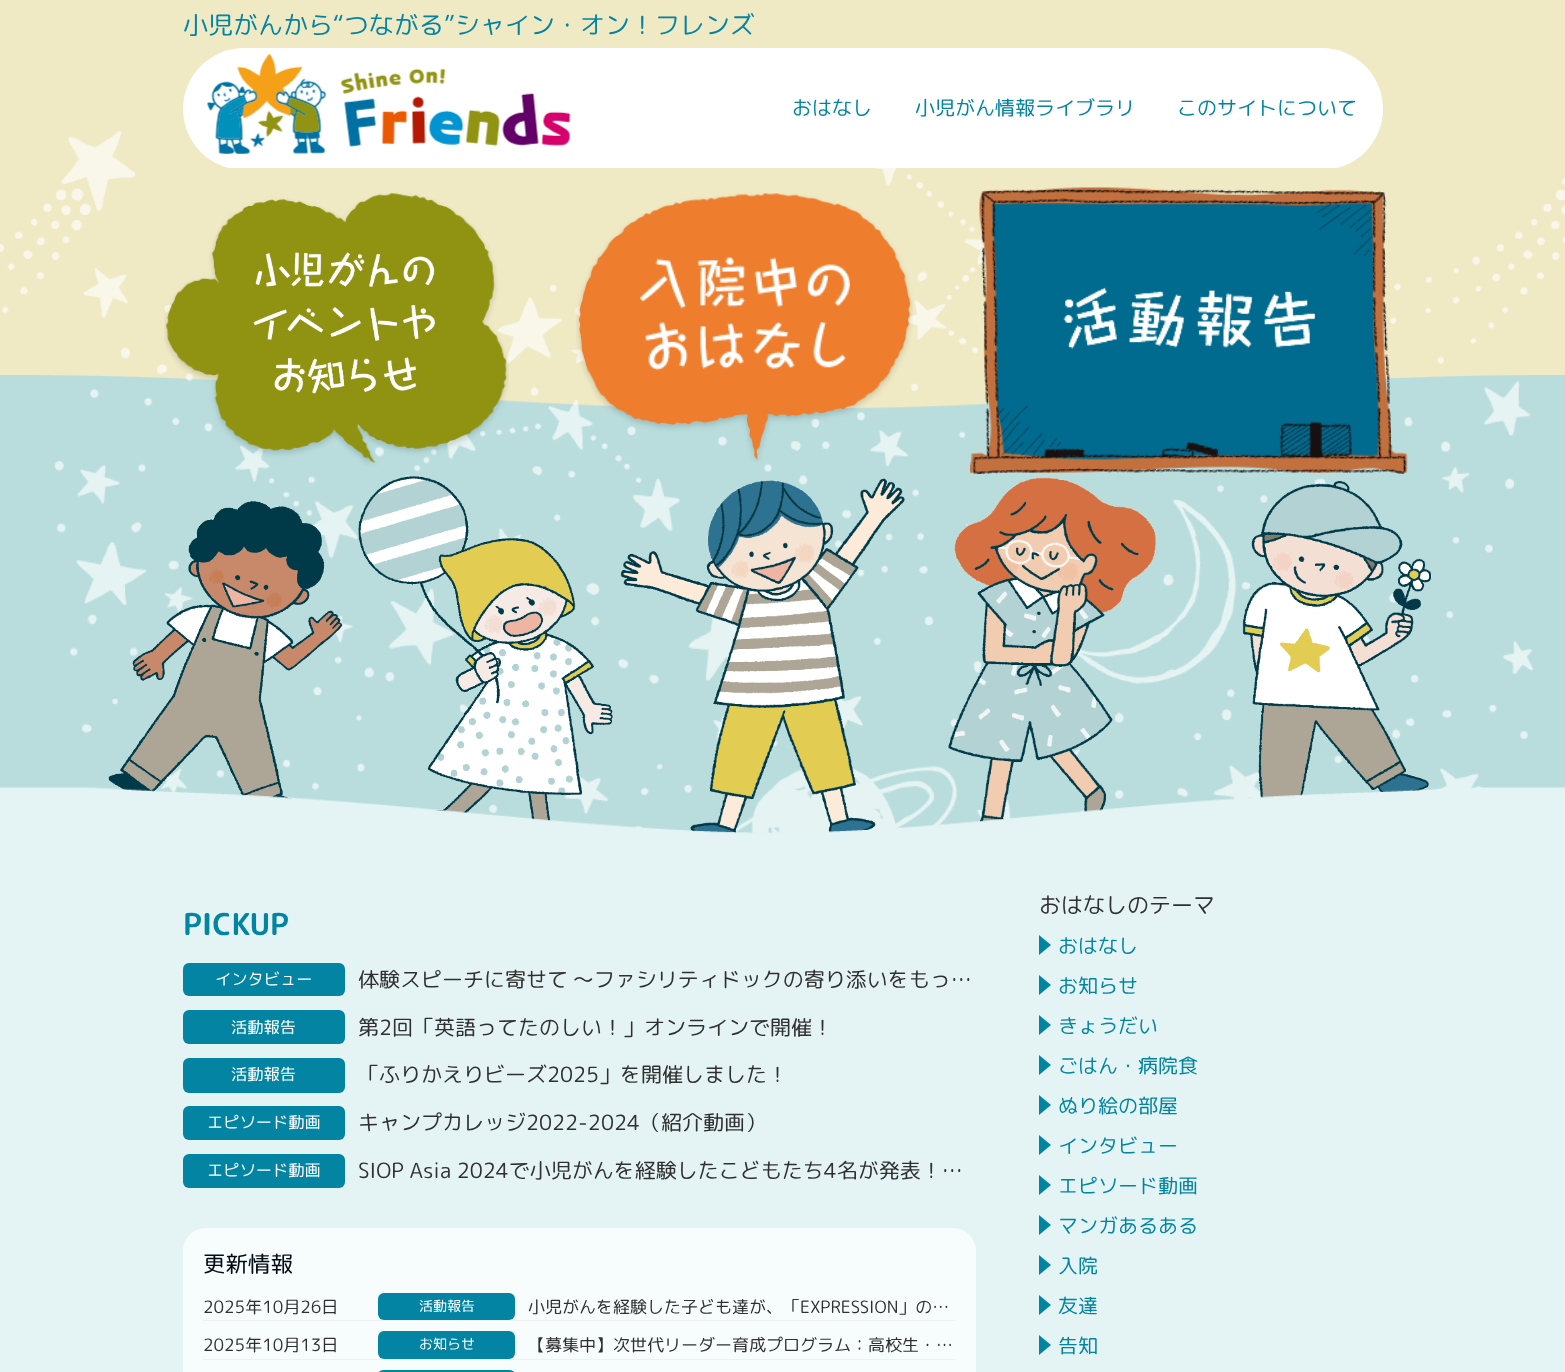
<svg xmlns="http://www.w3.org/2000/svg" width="1565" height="1372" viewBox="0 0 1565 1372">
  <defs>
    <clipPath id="clip1"><path d="M0 48h1565v120H0z"/></clipPath>
  </defs>
  <rect width="100%" height="100%" fill="#e4f4f4"/>
  <path d="M0 0h1565v410H0z" fill="#efe9c4"/>
  <image x="0" y="375" width="1564" height="459" href="img/14.png"/>
  <path d="M1564 375h1v413H1564z" fill="#b9dddd"/>
  <image x="0" y="131" width="1565" height="703" href="img/2.png"/>
  <g clip-path="url(#clip1)">
    <rect x="183" y="48" width="1200" height="122" rx="61" fill="#fff"/>
  </g>
  <image x="207" y="53" width="364" height="101" href="img/1.png"/>
  <image x="164" y="193" width="345" height="273" href="img/3.png"/>
  <image x="253" y="252" width="182" height="142" href="img/4.png"/>
  <image x="576" y="193" width="337" height="269" href="img/5.png"/>
  <image x="640" y="257" width="210" height="113" href="img/6.png"/>
  <image x="970" y="187" width="438" height="287" href="img/7.png"/>
  <image x="1063" y="287" width="252" height="62" href="img/8.png"/>
  <image x="108" y="501" width="235" height="298" href="img/9.png"/>
  <image x="358" y="476" width="255" height="346" href="img/10.png"/>
  <image x="620" y="478" width="285" height="356" href="img/11.png"/>
  <image x="948" y="477" width="208" height="345" href="img/12.png"/>
  <image x="1242" y="481" width="190" height="317" href="img/13.png"/>
  <image x="0" y="787" width="1565" height="63" href="img/15.png"/>
  <rect x="183" y="963" width="162" height="33" rx="6" fill="#0384a3"/>
  <rect x="183" y="1010" width="162" height="34" rx="6" fill="#0384a3"/>
  <rect x="183" y="1058" width="162" height="35" rx="6" fill="#0384a3"/>
  <rect x="183" y="1106" width="162" height="34" rx="6" fill="#0384a3"/>
  <rect x="183" y="1154" width="162" height="34" rx="6" fill="#0384a3"/>
  <rect x="183" y="1228" width="793" height="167" rx="23" fill="#f7fcfc"/>
  <path d="M203 1320h753v1H203z" fill="#f0f0f0"/>
  <rect x="378" y="1293" width="137" height="27" rx="6" fill="#0384a3"/>
  <path d="M203 1359h753v1H203z" fill="#f0f0f0"/>
  <rect x="378" y="1331" width="137" height="28" rx="6" fill="#0384a3"/>
  <rect x="378" y="1370" width="137" height="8" rx="6" fill="#0384a3"/>
  <path d="M1039 955V935L1051 945Z" fill="#0384a3"/>
  <path d="M1039 995V975L1051 985Z" fill="#0384a3"/>
  <path d="M1039 1035V1015L1051 1025Z" fill="#0384a3"/>
  <path d="M1039 1075V1055L1051 1065Z" fill="#0384a3"/>
  <path d="M1039 1115V1095L1051 1105Z" fill="#0384a3"/>
  <path d="M1039 1155V1135L1051 1145Z" fill="#0384a3"/>
  <path d="M1039 1195V1175L1051 1185Z" fill="#0384a3"/>
  <path d="M1039 1235V1215L1051 1225Z" fill="#0384a3"/>
  <path d="M1039 1275V1255L1051 1265Z" fill="#0384a3"/>
  <path d="M1039 1315V1295L1051 1305Z" fill="#0384a3"/>
  <path d="M1039 1355V1335L1051 1345Z" fill="#0384a3"/>
  <text x="183" y="34" font-family="'Rounded Mplus 1c'" font-size="25" fill="#0384a3">小児がんから“つながる”シャイン・オン！フレンズ</text>
  <g font-family="'Rounded Mplus 1c'" font-size="20" fill="#0384a3">
    <text x="792" y="115">おはなし</text>
    <text x="915" y="115">小児がん情報ライブラリ</text>
    <text x="1177" y="115">このサイトについて</text>
  </g>
  <text x="183" y="935" font-family="'Rounded Mplus 1c Bold'" font-size="30" font-weight="bold" fill="#0384a3">PICKUP</text>
  <text x="215" y="985" font-family="'Rounded Mplus 1c'" font-size="16.25" fill="#fff">インタビュー</text>
  <text x="358" y="987" word-spacing="-1" font-family="'Rounded Mplus 1c'" font-size="21" fill="#303030">体験スピーチに寄せて 〜ファシリティドックの寄り添いをもっ…</text>
  <text x="231" y="1033" font-family="'Rounded Mplus 1c'" font-size="16.25" fill="#fff">活動報告</text>
  <text x="358" y="1035" font-family="'Rounded Mplus 1c'" font-size="21" fill="#303030">第2回「英語ってたのしい！」オンラインで開催！</text>
  <text x="231" y="1080" font-family="'Rounded Mplus 1c'" font-size="16.25" fill="#fff">活動報告</text>
  <text x="358" y="1082" font-family="'Rounded Mplus 1c'" font-size="21" fill="#303030">「ふりかえりビーズ2025」を開催しました！</text>
  <text x="207" y="1128" font-family="'Rounded Mplus 1c'" font-size="16.25" fill="#fff">エピソード動画</text>
  <text x="358" y="1130" font-family="'Rounded Mplus 1c'" font-size="21" fill="#303030">キャンプカレッジ2022-2024（紹介動画）</text>
  <text x="207" y="1176" font-family="'Rounded Mplus 1c'" font-size="16.25" fill="#fff">エピソード動画</text>
  <text x="358" y="1178" font-family="'Rounded Mplus 1c'" font-size="21" fill="#303030">SIOP Asia 2024で小児がんを経験したこどもたち4名が発表！…</text>
  <text x="203" y="1272" font-family="'Rounded Mplus 1c'" font-size="22.5" fill="#000c15">更新情報</text>
  <text x="203" y="1313" font-family="'Rounded Mplus 1c'" font-size="17" fill="#303030">2025年10月26日</text>
  <text x="419" y="1311" font-family="'Rounded Mplus 1c'" font-size="14" fill="#fff">活動報告</text>
  <g font-family="'Rounded Mplus 1c'" font-size="17" fill="#303030">
    <text x="528" y="1313">小児がんを経験した子ども達が、「EXPRESSION」の…</text>
    <text x="203" y="1351">2025年10月13日</text>
  </g>
  <text x="419" y="1349" font-family="'Rounded Mplus 1c'" font-size="14" fill="#fff">お知らせ</text>
  <text x="528" y="1351" font-family="'Rounded Mplus 1c'" font-size="17" fill="#303030">【募集中】次世代リーダー育成プログラム：高校生・…</text>
  <text x="1039" y="913" font-family="'Rounded Mplus 1c'" font-size="22" fill="#303030">おはなしのテーマ</text>
  <g font-family="'Rounded Mplus 1c'" font-size="20" fill="#0384a3">
    <text x="1058" y="953">おはなし</text>
    <text x="1058" y="993">お知らせ</text>
    <text x="1058" y="1033">きょうだい</text>
    <text x="1058" y="1073">ごはん・病院食</text>
    <text x="1058" y="1113">ぬり絵の部屋</text>
    <text x="1058" y="1153">インタビュー</text>
    <text x="1058" y="1193">エピソード動画</text>
    <text x="1058" y="1233">マンガあるある</text>
    <text x="1058" y="1273">入院</text>
    <text x="1058" y="1313">友達</text>
    <text x="1058" y="1353">告知</text>
  </g>
</svg>
